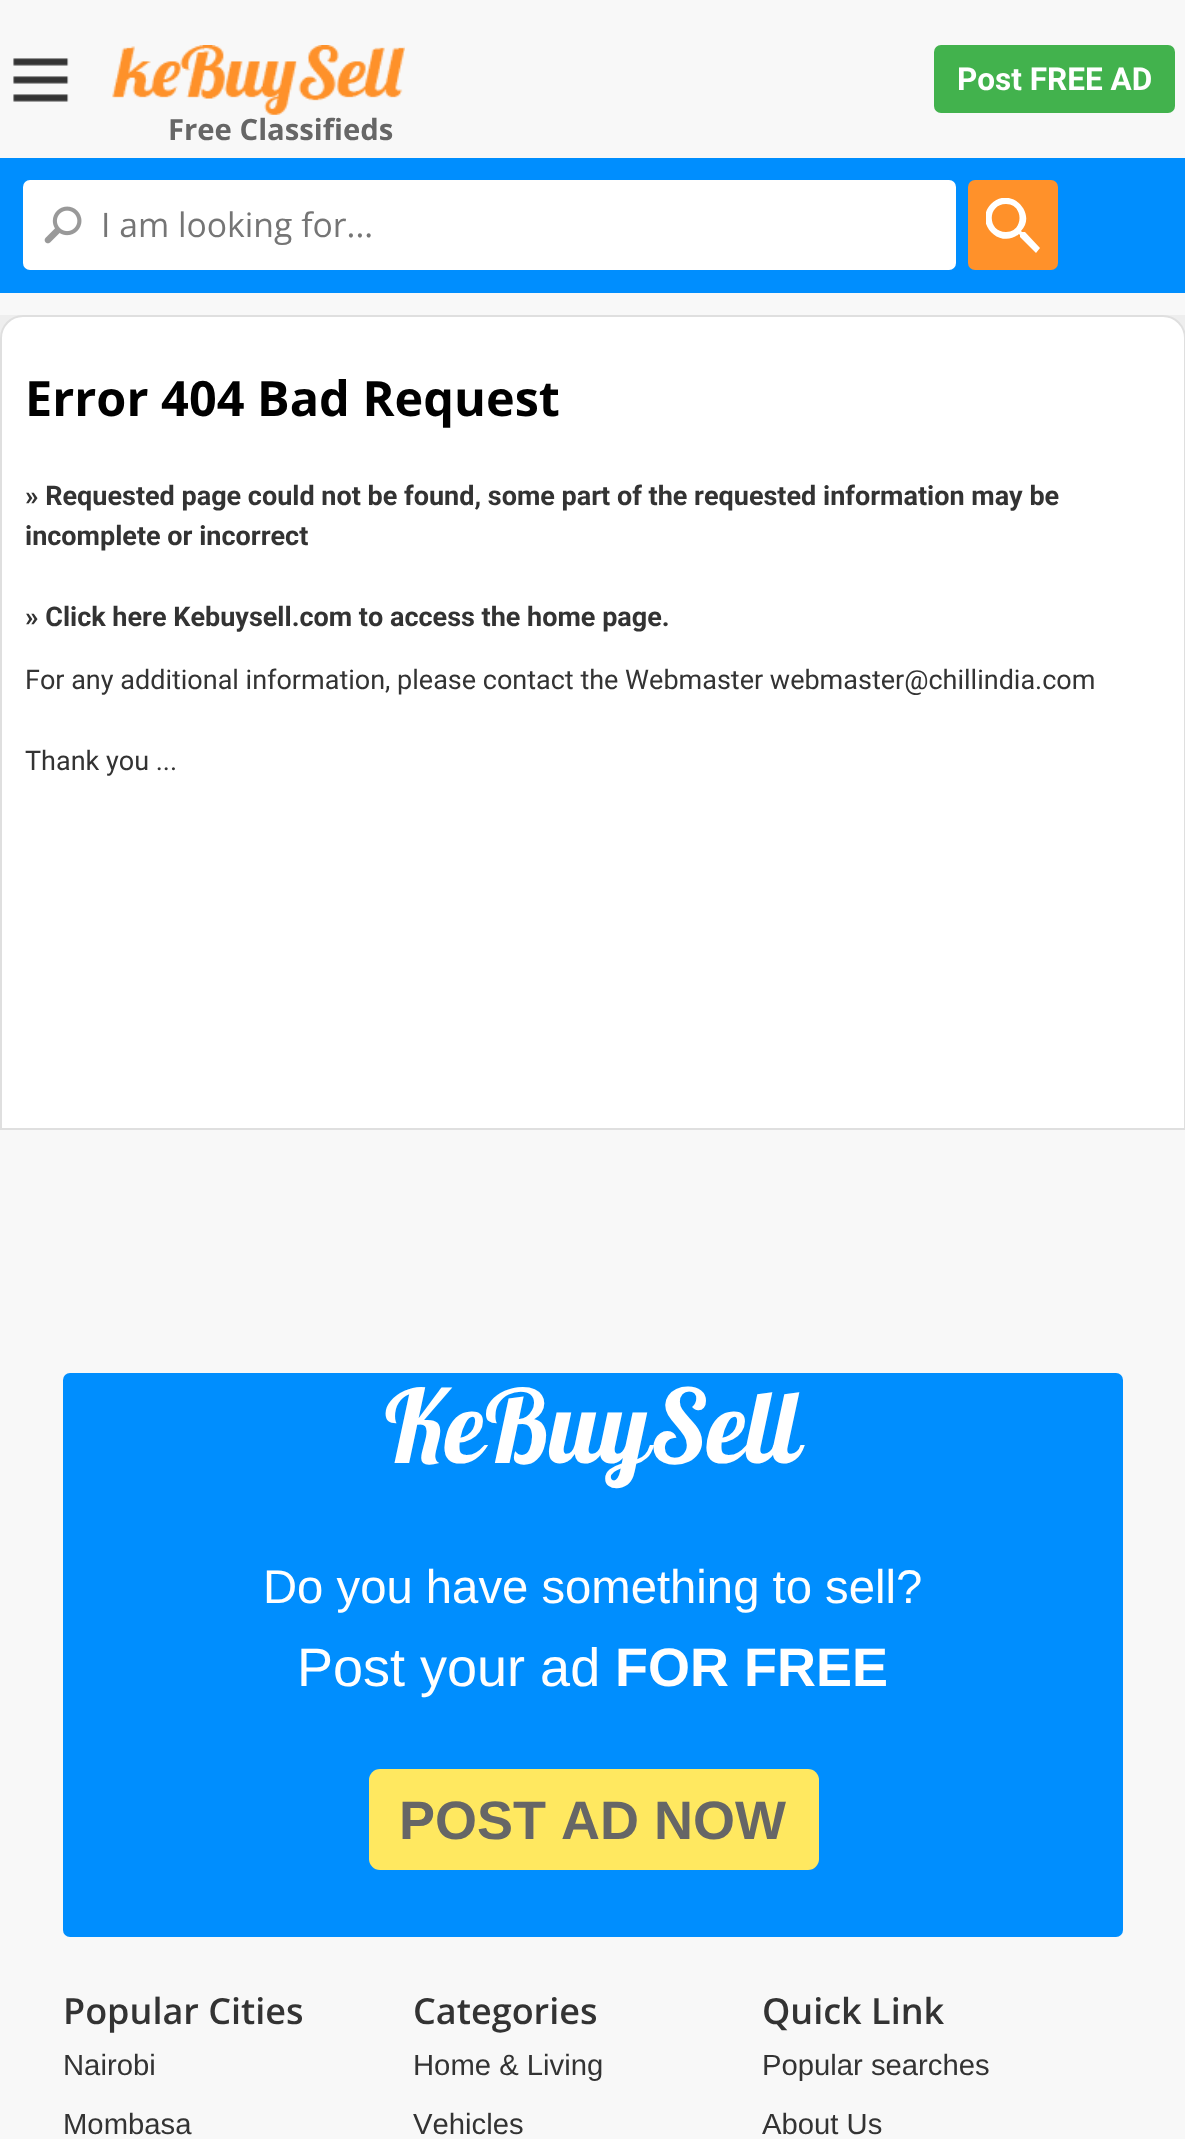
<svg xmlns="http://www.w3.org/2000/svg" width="1185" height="2139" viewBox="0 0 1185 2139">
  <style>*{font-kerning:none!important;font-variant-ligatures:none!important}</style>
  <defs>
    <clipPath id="clip1"><path d="M986 198h56v56H986z"/></clipPath>
  </defs>
  <rect width="100%" height="100%" fill="#eee"/>
  <path d="M0 0h1185v315H0z" fill="#f8f8f8"/>
  <image x="13" y="58" width="56" height="44" href="img/1.png"/>
  <rect x="934" y="45" width="241" height="68" rx="7" fill="#42b24d"/>
  <image x="112" y="45" width="293" height="70" href="img/2.png"/>
  <path d="M0 158h1185v135H0z" fill="#008efe"/>
  <rect x="23" y="180" width="933" height="90" rx="7" fill="#fff"/>
  <image x="44" y="206" width="38" height="38" href="img/3.png"/>
  <rect x="968" y="180" width="90" height="90" rx="7" fill="#ff912a"/>
  <g clip-path="url(#clip1)">
    <path d="M1025 232H1022L1021 231C1038 213 1010 185 991 204C973 223 1000 250 1019 234L1020 235V237L1036 253L1040 248ZM1006 232C987 232 987 204 1006 204C1024 204 1024 232 1006 232Z" fill="#fff" fill-rule="evenodd"/>
  </g>
  <path d="M23 316H1163C1175 316 1185 326 1185 338V1129H1V338C1 326 11 316 23 316Z" fill="#fff" stroke="#dfdfdf" stroke-width="2"/>
  <path d="M0 1130h1185v1009H0z" fill="#f8f8f8"/>
  <rect x="63" y="1373" width="1060" height="564" rx="7" fill="#008efe"/>
  <rect x="369" y="1769" width="450" height="101" rx="11" fill="#ffe860"/>
  <text x="957" y="90" font-family="Roboto" font-size="31.5" font-weight="bold" fill="#fff">Post FREE AD</text>
  <text x="168" y="140" font-family="Open Sans" font-size="29.25" font-weight="bold" fill="#666">Free Classifieds</text>
  <text x="101" y="237" font-family="Open Sans" font-size="33.75" fill="#757575">I am looking for...</text>
  <text x="25" y="416" font-family="Open Sans" font-size="48.6" font-weight="bold" fill="#000">Error 404 Bad Request</text>
  <g font-family="Roboto" font-size="27" font-weight="bold" fill="#333">
    <text x="25" y="505">» Requested page could not be found, some part of the requested information may be</text>
    <text x="25" y="545">incomplete or incorrect</text>
    <text x="25" y="626">» Click here Kebuysell.com to access the home page.</text>
  </g>
  <g font-family="Roboto" font-size="27" fill="#333">
    <text x="25" y="689">For any additional information, please contact the Webmaster webmaster@chillindia.com</text>
    <text x="25" y="770">Thank you ...</text>
  </g>
  <text x="385" y="1463" font-family="Lobster" font-size="101.25" fill="#fff">KeBuySell</text>
  <text x="263" y="1603" font-family="Liberation Sans" font-size="47.25" fill="#fff">Do you have something to sell?</text>
  <text x="297" y="1686" font-family="Liberation Sans" font-size="54" fill="#fff">Post your ad</text>
  <text x="615" y="1686" font-family="Liberation Sans" font-size="54" font-weight="bold" fill="#fff">FOR FREE</text>
  <text x="399" y="1839" font-family="Liberation Sans" font-size="54" font-weight="bold" fill="#666">POST AD NOW</text>
  <text x="63" y="2024" font-family="Open Sans" font-size="36" font-weight="600" fill="#333">Popular Cities</text>
  <g font-family="Liberation Sans" font-size="29.25" fill="#333">
    <text x="63" y="2075">Nairobi</text>
    <text x="63" y="2134">Mombasa</text>
  </g>
  <text x="413" y="2024" font-family="Open Sans" font-size="36" font-weight="600" fill="#333">Categories</text>
  <g font-family="Liberation Sans" font-size="29.25" fill="#333">
    <text x="413" y="2075">Home &amp; Living</text>
    <text x="413" y="2134">Vehicles</text>
  </g>
  <text x="762" y="2024" font-family="Open Sans" font-size="36" font-weight="600" fill="#333">Quick Link</text>
  <g font-family="Liberation Sans" font-size="29.25" fill="#333">
    <text x="762" y="2075">Popular searches</text>
    <text x="762" y="2134">About Us</text>
  </g>
</svg>
